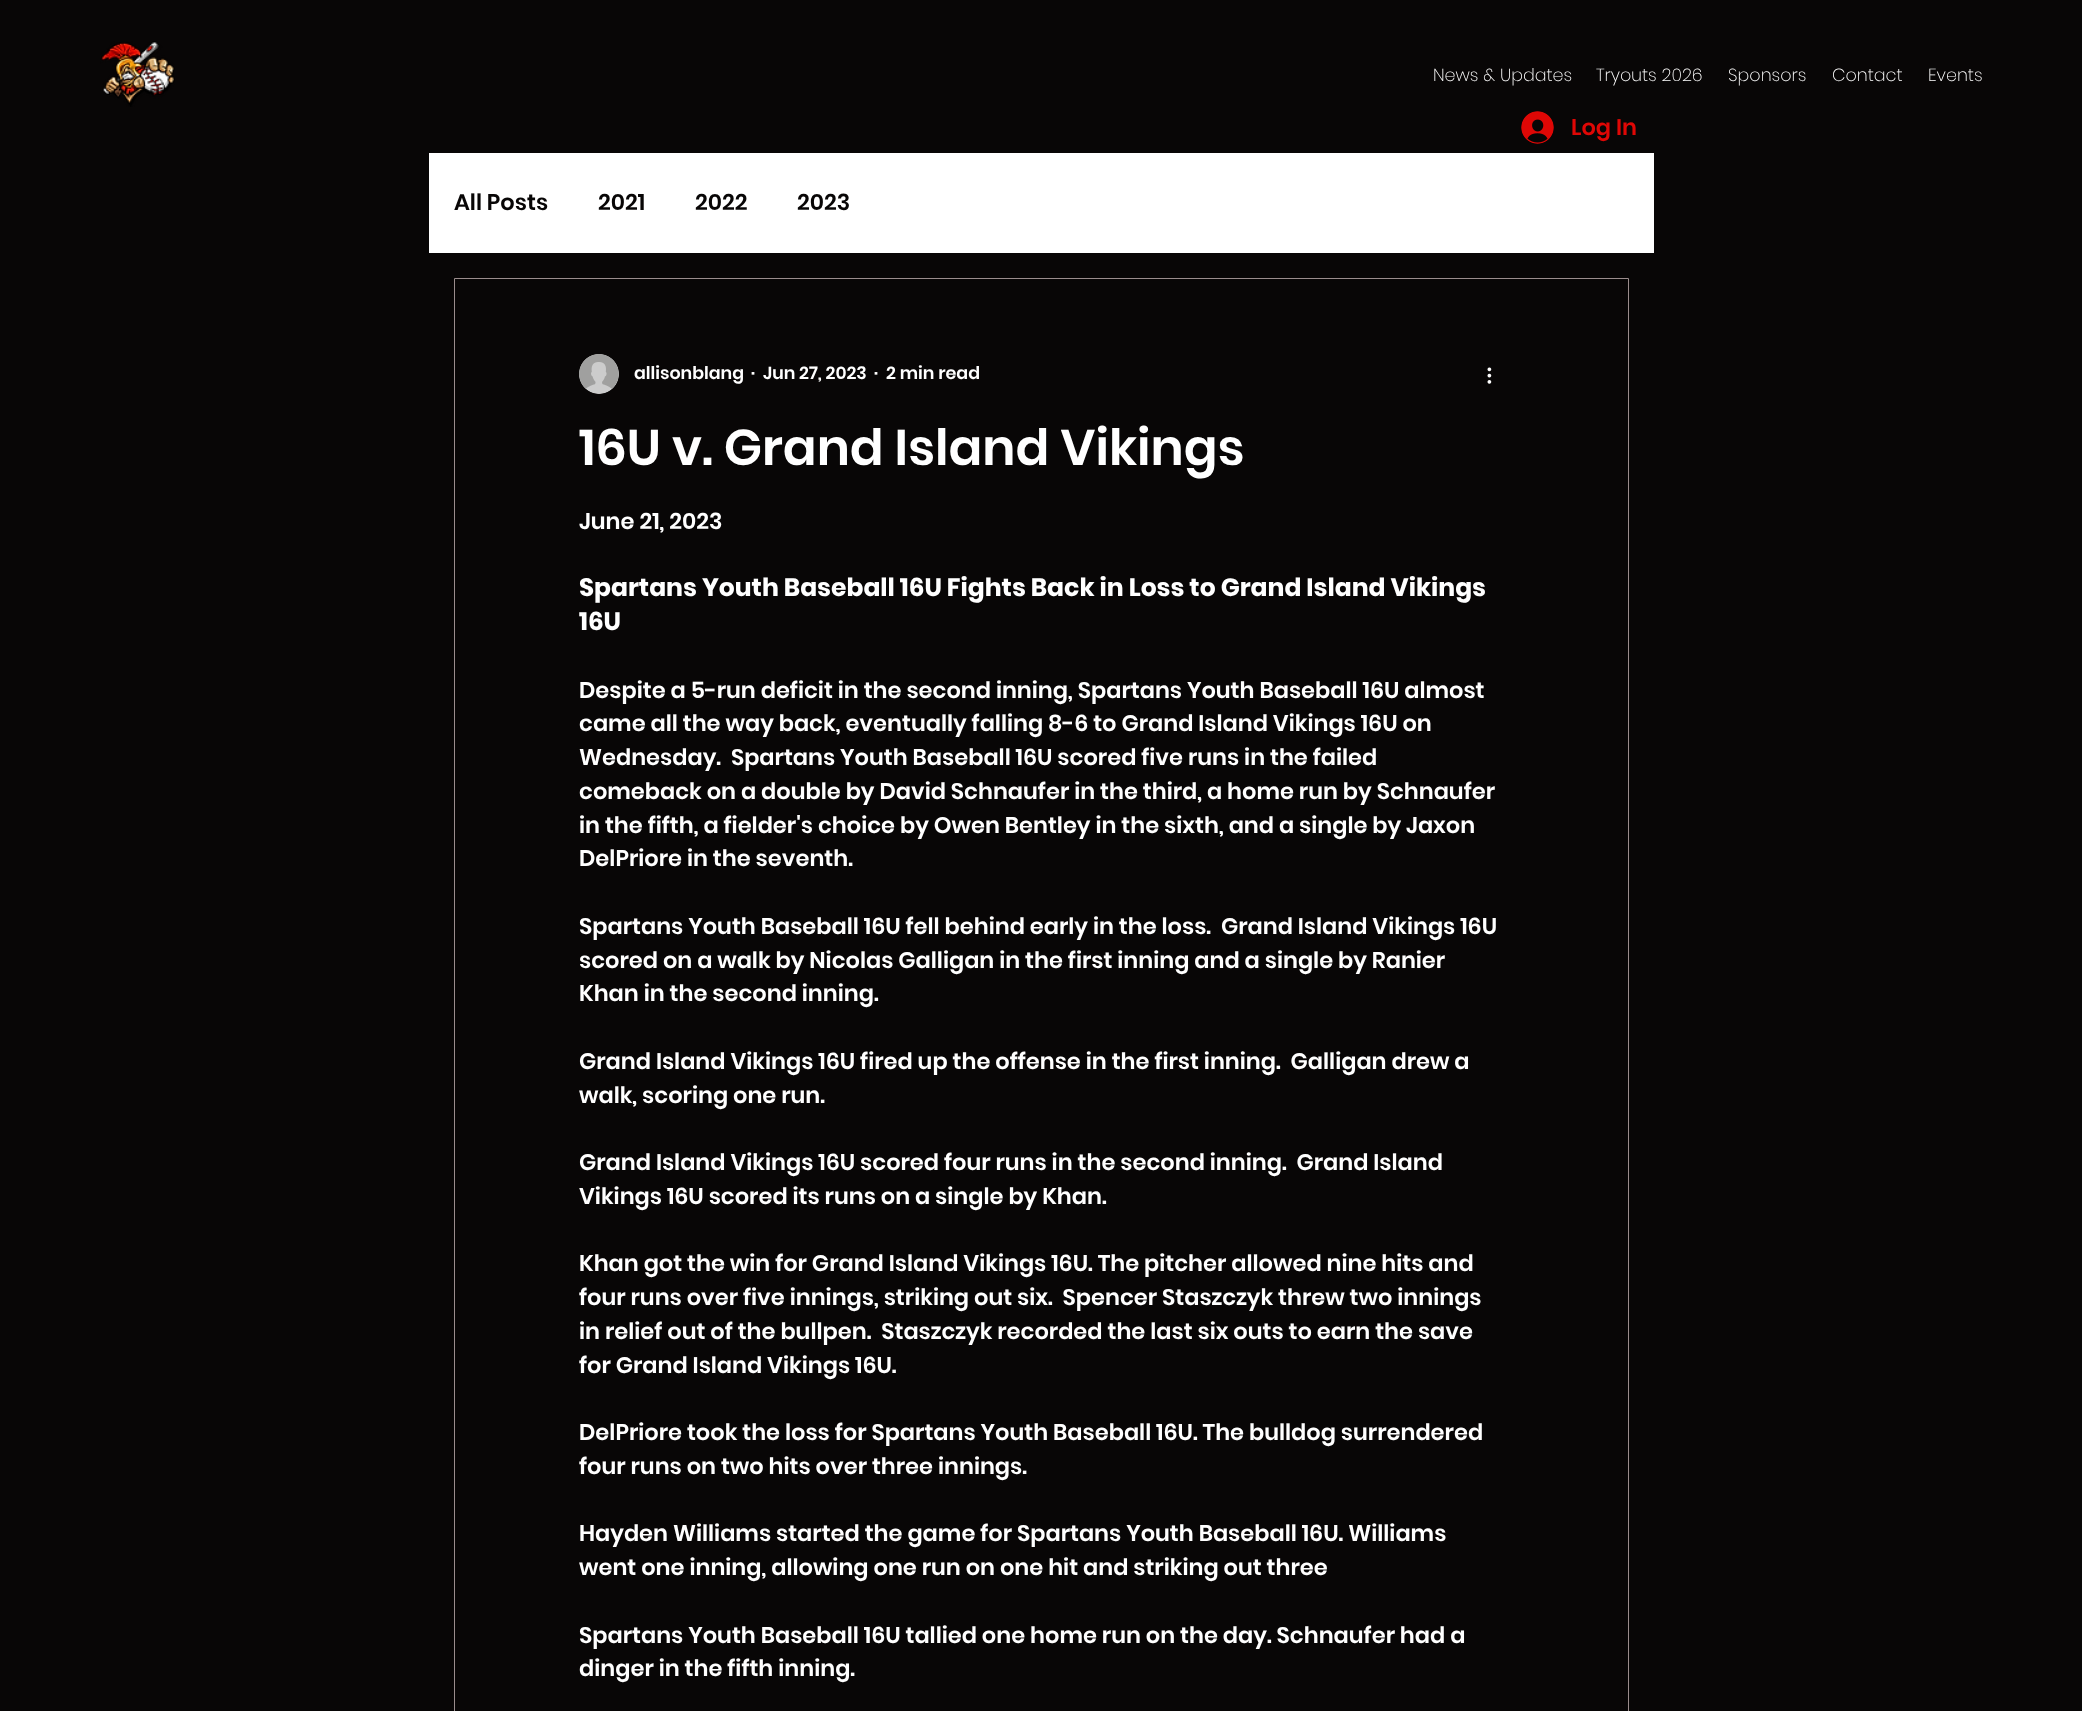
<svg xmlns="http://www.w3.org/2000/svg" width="2082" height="1711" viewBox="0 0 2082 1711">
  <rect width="100%" height="100%" fill="#080606"/>
  <image x="100" y="41" width="75" height="66" href="img/1.png"/>
  <image x="1521" y="111" width="33" height="33" href="img/2.png"/>
  <path d="M429 153h1225v100H429z" fill="#fff"/>
  <path d="M454.5 278.5h1174v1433H454.5z" fill="none" stroke="#9a8c8c"/>
  <image x="579" y="354" width="40" height="40" href="img/3.png"/>
  <image x="1487" y="367" width="5" height="17" href="img/4.png"/>
  <g font-family="Poppins" font-size="17.5" font-weight="200" fill="#fff">
    <text x="1433" y="81">News &amp; Updates</text>
    <text x="1596" y="81">Tryouts 2026</text>
    <text x="1728" y="81">Sponsors</text>
    <text x="1832" y="81">Contact</text>
    <text x="1928" y="81">Events</text>
  </g>
  <text x="1571" y="135" font-family="Poppins" font-size="22.5" font-weight="600" fill="#df0705">Log In</text>
  <g font-family="Poppins" font-size="22.5" font-weight="600" fill="#080606">
    <text x="454" y="210">All Posts</text>
    <text x="598" y="210">2021</text>
    <text x="695" y="210">2022</text>
    <text x="797" y="210">2023</text>
  </g>
  <g font-family="Poppins" font-size="17.5" font-weight="600" fill="#fff">
    <text x="634" y="379">allisonblang</text>
    <text x="751" y="379">·</text>
    <text x="763" y="379">Jun 27, 2023</text>
    <text x="874" y="379">·</text>
    <text x="886" y="379">2 min read</text>
  </g>
  <text x="579" y="465" font-family="Poppins" font-size="50" font-weight="600" fill="#fff">16U v. Grand Island Vikings</text>
  <text x="579" y="529" font-family="Poppins" font-size="22.5" font-weight="600" fill="#fff">June 21, 2023</text>
  <g font-family="Poppins" font-size="25" font-weight="bold" fill="#fff">
    <text x="579" y="596">Spartans Youth Baseball 16U Fights Back in Loss to Grand Island Vikings</text>
    <text x="579" y="630">16U</text>
  </g>
  <g font-family="Poppins" font-size="22.5" font-weight="600" fill="#fff">
    <text x="579" y="698">Despite a 5-run deficit in the second inning, Spartans Youth Baseball 16U almost</text>
    <text x="579" y="731">came all the way back, eventually falling 8-6 to Grand Island Vikings 16U on</text>
    <text x="579" y="765" xml:space="preserve">Wednesday.  Spartans Youth Baseball 16U scored five runs in the failed</text>
    <text x="579" y="799">comeback on a double by David Schnaufer in the third, a home run by Schnaufer</text>
    <text x="579" y="833">in the fifth, a fielder's choice by Owen Bentley in the sixth, and a single by Jaxon</text>
    <text x="579" y="866">DelPriore in the seventh.</text>
    <text x="579" y="934" xml:space="preserve">Spartans Youth Baseball 16U fell behind early in the loss.  Grand Island Vikings 16U</text>
    <text x="579" y="968">scored on a walk by Nicolas Galligan in the first inning and a single by Ranier</text>
    <text x="579" y="1001">Khan in the second inning.</text>
    <text x="579" y="1069" xml:space="preserve">Grand Island Vikings 16U fired up the offense in the first inning.  Galligan drew a</text>
    <text x="579" y="1103">walk, scoring one run.</text>
    <text x="579" y="1170" xml:space="preserve">Grand Island Vikings 16U scored four runs in the second inning.  Grand Island</text>
    <text x="579" y="1204">Vikings 16U scored its runs on a single by Khan.</text>
    <text x="579" y="1271">Khan got the win for Grand Island Vikings 16U. The pitcher allowed nine hits and</text>
    <text x="579" y="1305" xml:space="preserve">four runs over five innings, striking out six.  Spencer Staszczyk threw two innings</text>
    <text x="579" y="1339" xml:space="preserve">in relief out of the bullpen.  Staszczyk recorded the last six outs to earn the save</text>
    <text x="579" y="1373">for Grand Island Vikings 16U.</text>
    <text x="579" y="1440">DelPriore took the loss for Spartans Youth Baseball 16U. The bulldog surrendered</text>
    <text x="579" y="1474">four runs on two hits over three innings.</text>
    <text x="579" y="1541">Hayden Williams started the game for Spartans Youth Baseball 16U. Williams</text>
    <text x="579" y="1575">went one inning, allowing one run on one hit and striking out three</text>
    <text x="579" y="1643">Spartans Youth Baseball 16U tallied one home run on the day. Schnaufer had a</text>
    <text x="579" y="1676">dinger in the fifth inning.</text>
  </g>
</svg>
